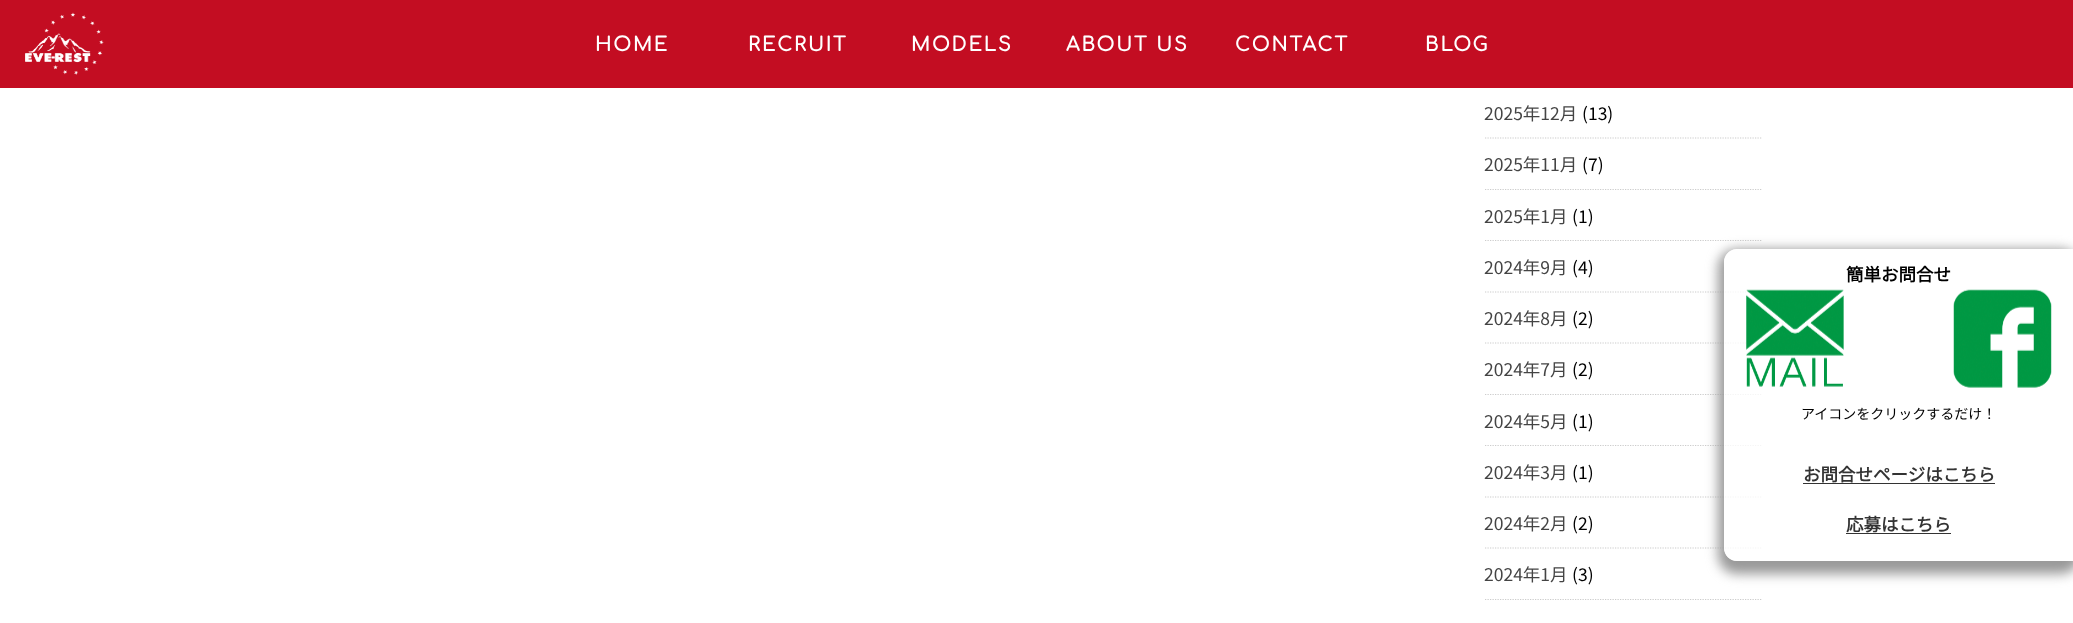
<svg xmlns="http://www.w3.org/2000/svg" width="2073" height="623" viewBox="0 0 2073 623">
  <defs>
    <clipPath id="clip1"><path d="M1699 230H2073V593H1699ZM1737 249H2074V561H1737C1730 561 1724 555 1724 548V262C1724 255 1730 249 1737 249Z" clip-rule="evenodd"/></clipPath>
  </defs>
  <rect width="100%" height="100%" fill="#fff"/>
  <path d="M0 0h2073v88H0z" fill="#c30d22"/>
  <image x="25" y="12" width="79" height="63" href="img/1.png"/>
  <path d="M1485 138H1762.5" fill="none" stroke="#ccc" stroke-width="1.2" stroke-dasharray="1.25 1.25"/>
  <path d="M1485 189.5H1762.5" fill="none" stroke="#ccc" stroke-width="1.2" stroke-dasharray="1.25 1.25"/>
  <path d="M1485 240.5H1762.5" fill="none" stroke="#ccc" stroke-width="1.2" stroke-dasharray="1.25 1.25"/>
  <path d="M1485 292H1762.5" fill="none" stroke="#ccc" stroke-width="1.2" stroke-dasharray="1.25 1.25"/>
  <path d="M1485 343H1762.5" fill="none" stroke="#ccc" stroke-width="1.2" stroke-dasharray="1.25 1.25"/>
  <path d="M1485 394.5H1762.5" fill="none" stroke="#ccc" stroke-width="1.2" stroke-dasharray="1.25 1.25"/>
  <path d="M1485 445.5H1762.5" fill="none" stroke="#ccc" stroke-width="1.2" stroke-dasharray="1.25 1.25"/>
  <path d="M1485 497H1762.5" fill="none" stroke="#ccc" stroke-width="1.2" stroke-dasharray="1.25 1.25"/>
  <path d="M1485 548H1762.5" fill="none" stroke="#ccc" stroke-width="1.2" stroke-dasharray="1.25 1.25"/>
  <path d="M1485 599.5H1762.5" fill="none" stroke="#ccc" stroke-width="1.2" stroke-dasharray="1.25 1.25"/>
  <g clip-path="url(#clip1)">
    <rect x="1718" y="249" width="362" height="325" rx="19" fill="#999" filter="blur(6px)"/>
  </g>
  <path d="M1737 249H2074V561H1737C1730 561 1724 555 1724 548V262C1724 255 1730 249 1737 249Z" fill="#ffffffcc"/>
  <image x="1746" y="289" width="98" height="98" href="img/2.png"/>
  <image x="1953" y="289" width="99" height="99" href="img/3.png"/>
  <path d="M1803 483h192v1H1803z" fill="#333"/>
  <path d="M1846 533h105v1H1846z" fill="#333"/>
  <g font-family="Comfortaa" font-size="19.25" font-weight="bold" letter-spacing="2" fill="#fff">
    <text x="595" y="51">HOME</text>
    <text x="748" y="51">RECRUIT</text>
    <text x="911" y="51">MODELS</text>
    <text x="1066" y="51">ABOUT US</text>
    <text x="1235" y="51">CONTACT</text>
    <text x="1425" y="51">BLOG</text>
  </g>
  <text x="1484" y="120" font-family="Noto Sans JP" font-size="17.5" font-weight="100" fill="#444">2025年12月</text>
  <text x="1582" y="120" font-family="Noto Sans JP" font-size="17.5" font-weight="100" fill="#000">(13)</text>
  <text x="1484" y="171" font-family="Noto Sans JP" font-size="17.5" font-weight="100" fill="#444">2025年11月</text>
  <text x="1582" y="171" font-family="Noto Sans JP" font-size="17.5" font-weight="100" fill="#000">(7)</text>
  <text x="1484" y="223" font-family="Noto Sans JP" font-size="17.5" font-weight="100" fill="#444">2025年1月</text>
  <text x="1572" y="223" font-family="Noto Sans JP" font-size="17.5" font-weight="100" fill="#000">(1)</text>
  <text x="1484" y="274" font-family="Noto Sans JP" font-size="17.5" font-weight="100" fill="#444">2024年9月</text>
  <text x="1572" y="274" font-family="Noto Sans JP" font-size="17.5" font-weight="100" fill="#000">(4)</text>
  <text x="1484" y="325" font-family="Noto Sans JP" font-size="17.5" font-weight="100" fill="#444">2024年8月</text>
  <text x="1572" y="325" font-family="Noto Sans JP" font-size="17.5" font-weight="100" fill="#000">(2)</text>
  <text x="1484" y="376" font-family="Noto Sans JP" font-size="17.5" font-weight="100" fill="#444">2024年7月</text>
  <text x="1572" y="376" font-family="Noto Sans JP" font-size="17.5" font-weight="100" fill="#000">(2)</text>
  <text x="1484" y="428" font-family="Noto Sans JP" font-size="17.5" font-weight="100" fill="#444">2024年5月</text>
  <text x="1572" y="428" font-family="Noto Sans JP" font-size="17.5" font-weight="100" fill="#000">(1)</text>
  <text x="1484" y="479" font-family="Noto Sans JP" font-size="17.5" font-weight="100" fill="#444">2024年3月</text>
  <text x="1572" y="479" font-family="Noto Sans JP" font-size="17.5" font-weight="100" fill="#000">(1)</text>
  <text x="1484" y="530" font-family="Noto Sans JP" font-size="17.5" font-weight="100" fill="#444">2024年2月</text>
  <text x="1572" y="530" font-family="Noto Sans JP" font-size="17.5" font-weight="100" fill="#000">(2)</text>
  <text x="1484" y="581" font-family="Noto Sans JP" font-size="17.5" font-weight="100" fill="#444">2024年1月</text>
  <text x="1572" y="581" font-family="Noto Sans JP" font-size="17.5" font-weight="100" fill="#000">(3)</text>
  <text x="1846" y="281" font-family="Noto Sans JP" font-size="17.5" font-weight="bold" fill="#000">簡単お問合せ</text>
  <text x="1801" y="419" font-family="Noto Sans JP" font-size="14" font-weight="100" fill="#000">アイコンをクリックするだけ！</text>
  <g font-family="Noto Sans JP" font-size="17.5" font-weight="bold" fill="#333">
    <text x="1803" y="481">お問合せページはこちら</text>
    <text x="1846" y="531">応募はこちら</text>
  </g>
</svg>
